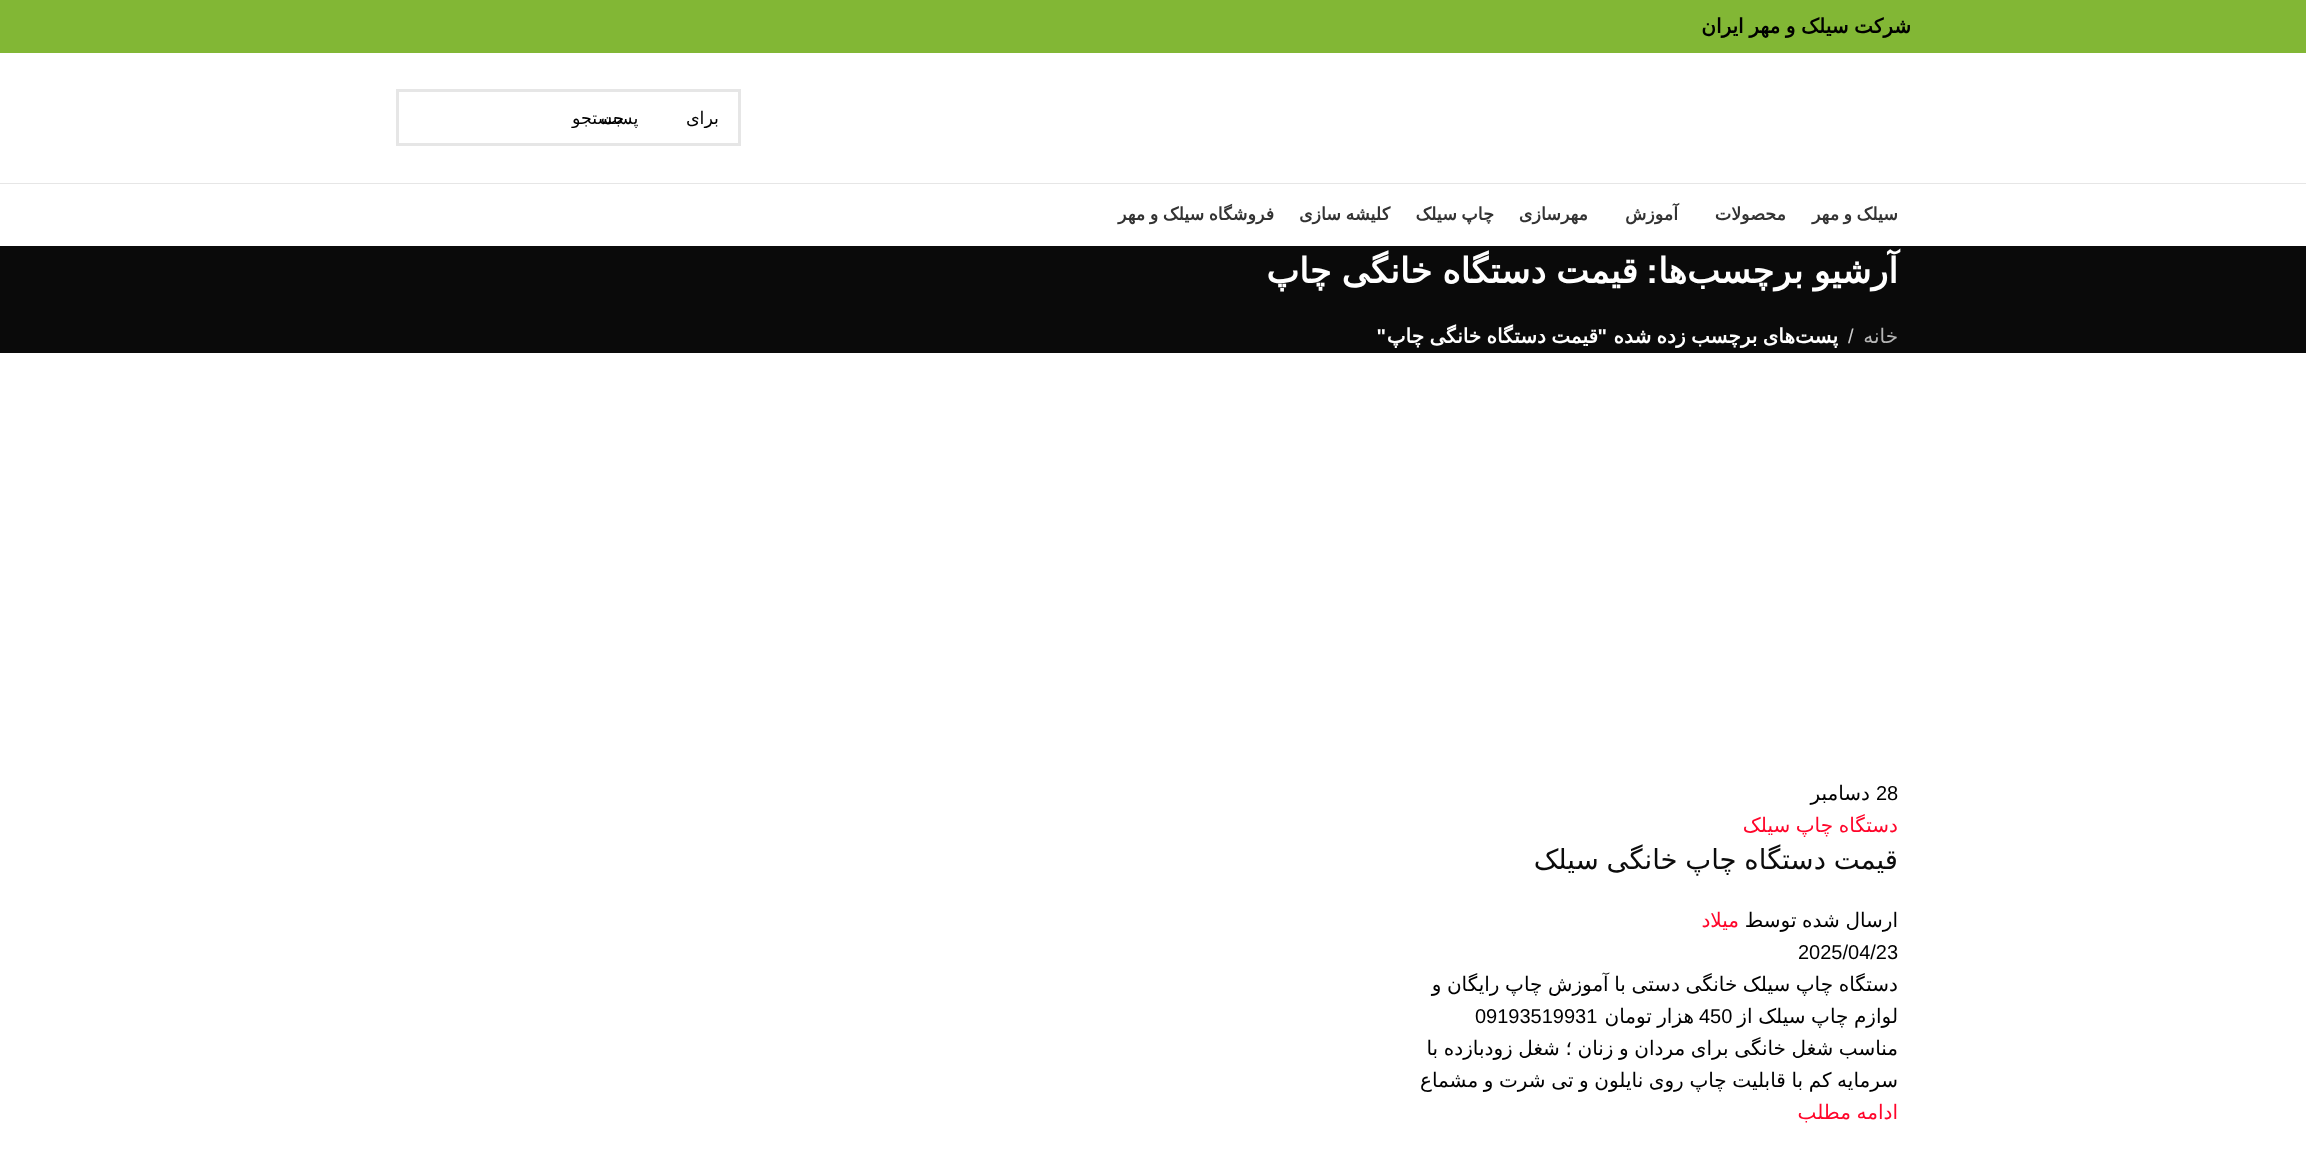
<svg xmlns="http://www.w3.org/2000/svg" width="2306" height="1176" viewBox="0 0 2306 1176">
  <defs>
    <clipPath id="clip1"><path d="M494 108h226v20H494z"/></clipPath>
  </defs>
  <rect width="100%" height="100%" fill="#fff"/>
  <path d="M0 0h2306v53H0z" fill="#82b735"/>
  <path d="M0 183h2306v1H0z" fill="#e6e6e6"/>
  <path d="M397.5 90.5h342v54H397.5z" fill="none" stroke="#e6e6e6" stroke-width="3"/>
  <path d="M0 246h2306v107H0z" fill="#0a0a0a"/>
  <text x="1911" y="33" word-spacing="-0.75" font-family="DejaVu Sans" font-size="20" font-weight="bold" direction="rtl" fill="#000">شرکت سیلک و مهر ایران</text>
  <g clip-path="url(#clip1)">
    <g font-family="DejaVu Sans" font-size="17.5" direction="rtl" fill="#000">
      <text x="624" y="124">جستجو</text>
      <text x="719" y="124" word-spacing="42">برای پست</text>
    </g>
  </g>
  <g font-family="DejaVu Sans" font-size="17.5" font-weight="bold" direction="rtl" fill="#333">
    <text x="1898" y="220" word-spacing="-1">سیلک و مهر</text>
    <text x="1786" y="220">محصولات</text>
    <text x="1678" y="220">آموزش</text>
    <text x="1588" y="220">مهرسازی</text>
    <text x="1494" y="220" word-spacing="-1">چاپ سیلک</text>
    <text x="1390" y="220" word-spacing="-1">کلیشه سازی</text>
    <text x="1274" y="220" word-spacing="-1">فروشگاه سیلک و مهر</text>
  </g>
  <g font-family="DejaVu Sans" font-size="35" font-weight="bold" direction="rtl" fill="#fff">
    <text x="1898" y="283" word-spacing="-1">آرشیو برچسب</text>
    <text x="1687" y="283">ها</text>
  </g>
  <text x="1658" y="283" font-family="Liberation Sans" font-size="35" font-weight="bold" direction="rtl" fill="#fff">:</text>
  <text x="1638" y="283" word-spacing="-1" font-family="DejaVu Sans" font-size="35" font-weight="bold" direction="rtl" fill="#fff">قیمت دستگاه خانگی چاپ</text>
  <text x="1898" y="343" font-family="DejaVu Sans" font-size="20" direction="rtl" fill="#b6b6b6">خانه</text>
  <text x="1848" y="343" font-family="Liberation Sans" font-size="20" fill="#cecece">/</text>
  <text x="1795" y="343" word-spacing="-1" font-family="DejaVu Sans" font-size="20" font-weight="bold" direction="rtl" fill="#fff">های برچسب زده شده</text>
  <text x="1607" y="343" font-family="Liberation Sans" font-size="20" font-weight="bold" direction="rtl" fill="#fff">"</text>
  <text x="1598" y="343" word-spacing="-1" font-family="DejaVu Sans" font-size="20" font-weight="bold" direction="rtl" fill="#fff">قیمت دستگاه خانگی چاپ</text>
  <text x="1386" y="343" font-family="Liberation Sans" font-size="20" font-weight="bold" direction="rtl" fill="#fff">"</text>
  <text x="1838" y="343" font-family="DejaVu Sans" font-size="20" font-weight="bold" direction="rtl" fill="#fff">پست</text>
  <text x="1876" y="800" font-family="Liberation Sans" font-size="20" fill="#000">28</text>
  <text x="1870" y="800" font-family="DejaVu Sans" font-size="20" direction="rtl" fill="#000">دسامبر</text>
  <text x="1898" y="832" word-spacing="-0.75" font-family="DejaVu Sans" font-size="20" direction="rtl" fill="#ff052a">دستگاه چاپ سیلک</text>
  <text x="1898" y="869" word-spacing="-1" font-family="DejaVu Sans" font-size="27.5" direction="rtl" fill="#0c0c0c">قیمت دستگاه چاپ خانگی سیلک</text>
  <text x="1898" y="927" word-spacing="-0.75" font-family="DejaVu Sans" font-size="20" direction="rtl" fill="#000">ارسال شده توسط</text>
  <text x="1739" y="927" font-family="DejaVu Sans" font-size="20" direction="rtl" fill="#ff052a">میلاد</text>
  <text x="1798" y="959" font-family="Liberation Sans" font-size="20" fill="#000">2025/04/23</text>
  <g font-family="DejaVu Sans" font-size="20" direction="rtl" fill="#000">
    <text x="1898" y="991" word-spacing="-0.75">دستگاه چاپ سیلک خانگی دستی با آموزش چاپ رایگان و</text>
    <text x="1898" y="1023" word-spacing="-0.75">لوازم چاپ سیلک از</text>
  </g>
  <text x="1699" y="1023" font-family="Liberation Sans" font-size="20" fill="#000">450</text>
  <text x="1694" y="1023" word-spacing="-1" font-family="DejaVu Sans" font-size="20" direction="rtl" fill="#000">هزار تومان</text>
  <text x="1475" y="1023" font-family="Liberation Sans" font-size="20" fill="#000">09193519931</text>
  <g font-family="DejaVu Sans" font-size="20" direction="rtl" fill="#000">
    <text x="1898" y="1055" word-spacing="-0.75">مناسب شغل خانگی برای مردان و زنان ؛ شغل زودبازده با</text>
    <text x="1898" y="1087" word-spacing="-0.75">سرمایه کم با قابلیت چاپ روی نایلون و تی شرت و مشماع</text>
  </g>
  <text x="1898" y="1119" word-spacing="-0.75" font-family="DejaVu Sans" font-size="20" direction="rtl" fill="#ff052a">ادامه مطلب</text>
</svg>
